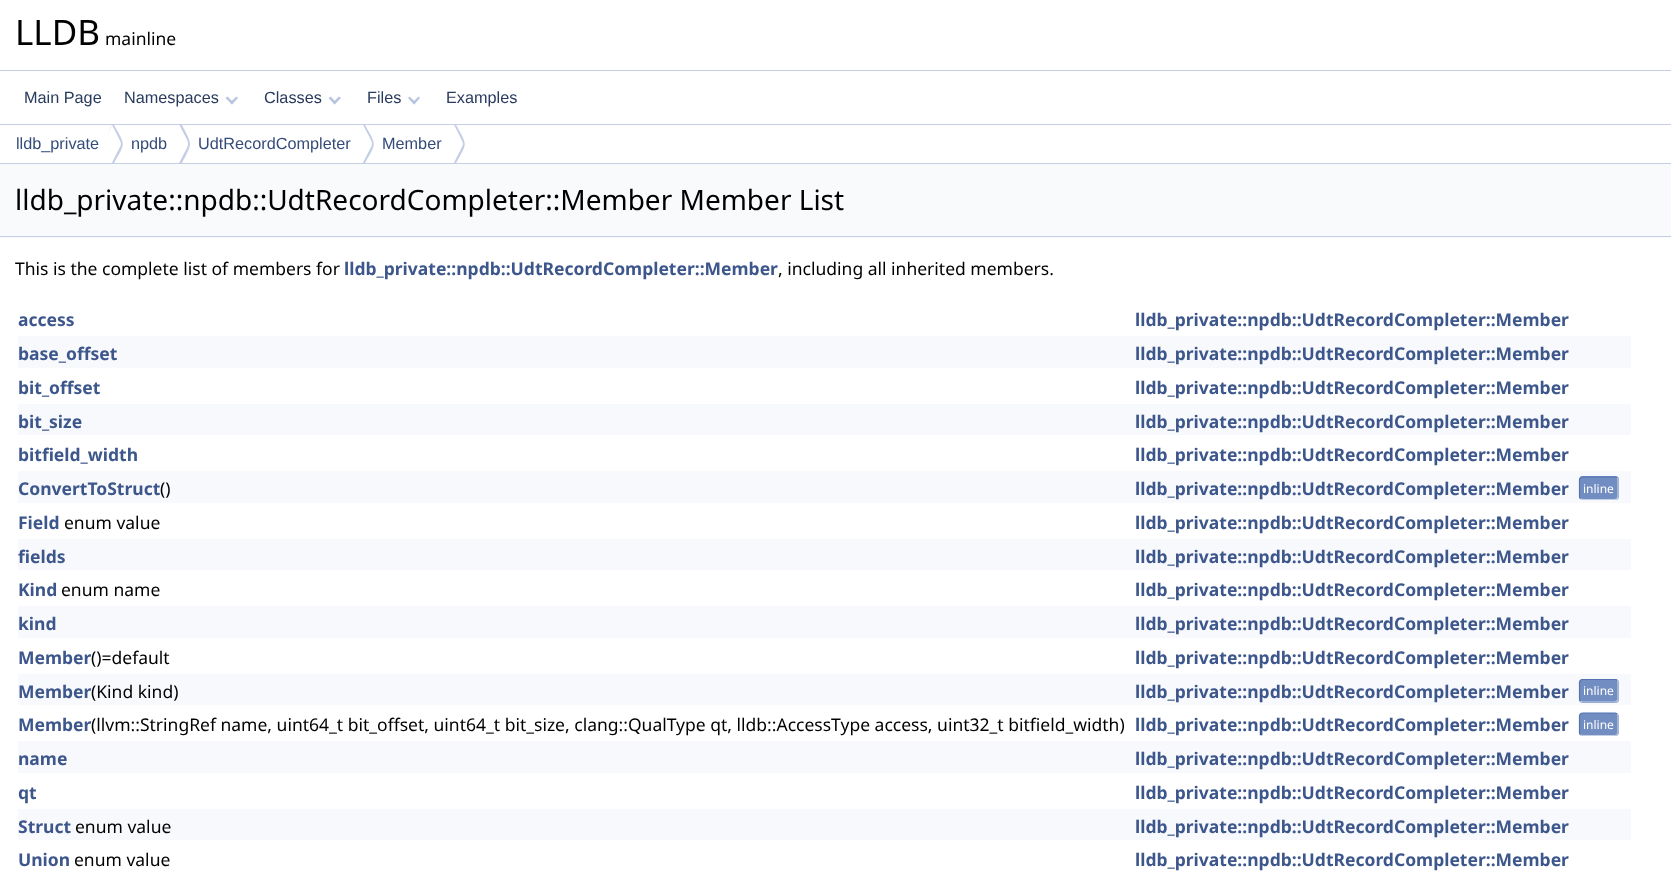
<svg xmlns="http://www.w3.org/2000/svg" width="1671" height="882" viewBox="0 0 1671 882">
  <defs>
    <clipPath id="clip1"><path d="M0 125h1671v38H0z"/></clipPath>
  </defs>
  <rect width="100%" height="100%" fill="#fff"/>
  <path d="M0 70h1671v1H0z" fill="#c4cfe5"/>
  <path d="M0 124h1671v1H0z" fill="#c4cfe5"/>
  <path d="M236.5 96.5L238 98L232 104.5L230 102.5Z" fill="#b6c4df"/>
  <path d="M227.5 96.5L233.5 102.5L232 104.5L225.5 98Z" fill="#b6c4df"/>
  <path d="M339 96.5L341 98L334.5 104.5L333 102.5Z" fill="#b6c4df"/>
  <path d="M330.5 96.5L336.5 102.5L334.5 104.5L328.5 98Z" fill="#b6c4df"/>
  <path d="M418.5 96.5L420 98L414 104.5L412.5 102.5Z" fill="#b6c4df"/>
  <path d="M409.5 96.5L416 102.5L414 104.5L408 98Z" fill="#b6c4df"/>
  <path d="M0 163h1671v1H0z" fill="#c4cfe5"/>
  <g clip-path="url(#clip1)">
    <path d="M113 123C109 127 108 138 108 144C108 137 109 130 112 125C123 148 123 140 112 162L113 165C126 141 126 147 113 123Z" fill="#c4cfe5"/>
  </g>
  <path d="M112 125L120.5 142C121 143 121 144.5 120.5 145.5L112 162.5C106.5 152 106.5 135.5 112 125Z" fill="#fff"/>
  <g clip-path="url(#clip1)">
    <path d="M181 123L179 125C191 148 191 140 179 162L181 165C193 141 193 147 181 123Z" fill="#c4cfe5"/>
  </g>
  <path d="M179.5 125L187.5 142C188 143 188 144.5 187.5 145.5L179.5 162.5C174 152 174 135.5 179.5 125Z" fill="#fff"/>
  <g clip-path="url(#clip1)">
    <path d="M364 123L363 125C375 148 374 140 363 162L361 157L364 165C377 141 377 147 364 123Z" fill="#c4cfe5"/>
  </g>
  <path d="M363 125L371.5 142C372 143 372 144.5 371.5 145.5L363 162.5C358 152 358 135.5 363 125Z" fill="#fff"/>
  <g clip-path="url(#clip1)">
    <path d="M455 123L454 125C465 148 465 140 454 162L453 159L455 165C468 141 468 147 455 123ZM450 148V139Z" fill="#c4cfe5" fill-rule="evenodd"/>
  </g>
  <path d="M454 125L462.5 142C463 143 463 144.5 462.5 145.5L454 162.5C449 152 449 135.5 454 125Z" fill="#fff"/>
  <path d="M0 164h1671v74H0z" fill="#f9fafc"/>
  <path d="M0 236h1671v1H0z" fill="#c4cfe5"/>
  <path d="M18 336h1613v32H18z" fill="#f8f9fc"/>
  <path d="M18 404h1613v31H18z" fill="#f8f9fc"/>
  <path d="M18 471h1613v32H18z" fill="#f8f9fc"/>
  <rect x="1579" y="476" width="40" height="24" rx="4" fill="#728dc1"/>
  <path d="M1617 478C1618 478.5 1618 479 1618 480V496C1618 497 1618 498 1617 498.5C1616.5 499 1616 499.5 1615 499.5H1582.5C1581.5 499.5 1581 499 1580.5 498.5" fill="none" stroke="#c4cfe5" stroke-width="1.2"/>
  <path d="M1580.5 498.5C1579.5 498 1579.5 497 1579.5 496V480C1579.5 479 1579.5 478.5 1580.5 478C1581 477 1581.5 477 1582.5 477H1615C1616 477 1616.5 477 1617 478" fill="none" stroke="#5373b4" stroke-width="1.2"/>
  <path d="M18 539h1613v31H18z" fill="#f8f9fc"/>
  <path d="M18 606h1613v32H18z" fill="#f8f9fc"/>
  <path d="M18 674h1613v31H18z" fill="#f8f9fc"/>
  <rect x="1579" y="679" width="40" height="24" rx="4" fill="#728dc1"/>
  <path d="M1617 680.5C1618 681 1618 681.5 1618 682.5V699C1618 699.5 1618 700.5 1617 701C1616.5 701.5 1616 702 1615 702H1582.5C1581.5 702 1581 701.5 1580.5 701" fill="none" stroke="#c4cfe5" stroke-width="1.2"/>
  <path d="M1580.5 701C1579.5 700.5 1579.5 699.5 1579.5 699V682.5C1579.5 681.5 1579.5 681 1580.5 680.5C1581 679.5 1581.5 679.5 1582.5 679.5H1615C1616 679.5 1616.5 679.5 1617 680.5" fill="none" stroke="#5373b4" stroke-width="1.2"/>
  <rect x="1579" y="713" width="40" height="23" rx="4" fill="#728dc1"/>
  <path d="M1617 714C1618 714.5 1618 715.5 1618 716V732.5C1618 733.5 1618 734 1617 734.5C1616.5 735.5 1616 735.5 1615 735.5H1582.5C1581.5 735.5 1581 735.5 1580.5 734.5" fill="none" stroke="#c4cfe5" stroke-width="1.2"/>
  <path d="M1580.5 734.5C1579.5 734 1579.5 733.5 1579.5 732.5V716C1579.5 715.5 1579.5 714.5 1580.5 714C1581 713.5 1581.5 713 1582.5 713H1615C1616 713 1616.5 713.5 1617 714" fill="none" stroke="#5373b4" stroke-width="1.2"/>
  <path d="M18 741h1613v32H18z" fill="#f8f9fc"/>
  <path d="M18 809h1613v31H18z" fill="#f8f9fc"/>
  <text x="15" y="45" font-family="Noto Sans" font-size="35" fill="#000">LLDB</text>
  <text x="105" y="45" font-family="Noto Sans" font-size="17.5" fill="#000">mainline</text>
  <g font-family="Liberation Sans" font-size="16.25" fill="#283a5d">
    <text x="24" y="103">Main Page</text>
    <text x="124" y="103">Namespaces</text>
    <text x="264" y="103">Classes</text>
    <text x="367" y="103">Files</text>
    <text x="446" y="103">Examples</text>
  </g>
  <g font-family="Liberation Sans" font-size="16.25" fill="#354c7b">
    <text x="16" y="149">lldb_private</text>
    <text x="131" y="149">npdb</text>
    <text x="198" y="149">UdtRecordCompleter</text>
    <text x="382" y="149">Member</text>
  </g>
  <text x="15" y="210" font-family="Noto Sans" font-size="28" fill="#000">lldb_private::npdb::UdtRecordCompleter::Member Member List</text>
  <text x="15" y="275" font-family="Noto Sans" font-size="17.5" fill="#000">This is the complete list of members for</text>
  <text x="344" y="275" font-family="Noto Sans" font-size="17.5" font-weight="bold" fill="#3d578c">lldb_private::npdb::UdtRecordCompleter::Member</text>
  <text x="778" y="275" font-family="Noto Sans" font-size="17.5" fill="#000">, including all inherited members.</text>
  <g font-family="Noto Sans" font-size="17.5" font-weight="bold" fill="#3d578c">
    <text x="18" y="326">access</text>
    <text x="1135" y="326">lldb_private::npdb::UdtRecordCompleter::Member</text>
    <text x="18" y="360">base_offset</text>
    <text x="1135" y="360">lldb_private::npdb::UdtRecordCompleter::Member</text>
    <text x="18" y="394">bit_offset</text>
    <text x="1135" y="394">lldb_private::npdb::UdtRecordCompleter::Member</text>
    <text x="18" y="428">bit_size</text>
    <text x="1135" y="428">lldb_private::npdb::UdtRecordCompleter::Member</text>
    <text x="18" y="461">bitfield_width</text>
    <text x="1135" y="461">lldb_private::npdb::UdtRecordCompleter::Member</text>
    <text x="18" y="495">ConvertToStruct</text>
  </g>
  <text x="160" y="495" font-family="Noto Sans" font-size="17.5" fill="#000">()</text>
  <text x="1135" y="495" font-family="Noto Sans" font-size="17.5" font-weight="bold" fill="#3d578c">lldb_private::npdb::UdtRecordCompleter::Member</text>
  <text x="1583" y="493" font-family="Noto Sans" font-size="12" fill="#fff">inline</text>
  <text x="18" y="529" font-family="Noto Sans" font-size="17.5" font-weight="bold" fill="#3d578c">Field</text>
  <text x="64" y="529" font-family="Noto Sans" font-size="17.5" fill="#000">enum value</text>
  <g font-family="Noto Sans" font-size="17.5" font-weight="bold" fill="#3d578c">
    <text x="1135" y="529">lldb_private::npdb::UdtRecordCompleter::Member</text>
    <text x="18" y="563">fields</text>
    <text x="1135" y="563">lldb_private::npdb::UdtRecordCompleter::Member</text>
    <text x="18" y="596">Kind</text>
  </g>
  <text x="61" y="596" font-family="Noto Sans" font-size="17.5" fill="#000">enum name</text>
  <g font-family="Noto Sans" font-size="17.5" font-weight="bold" fill="#3d578c">
    <text x="1135" y="596">lldb_private::npdb::UdtRecordCompleter::Member</text>
    <text x="18" y="630">kind</text>
    <text x="1135" y="630">lldb_private::npdb::UdtRecordCompleter::Member</text>
    <text x="18" y="664">Member</text>
  </g>
  <text x="91" y="664" font-family="Noto Sans" font-size="17.5" fill="#000">()=default</text>
  <g font-family="Noto Sans" font-size="17.5" font-weight="bold" fill="#3d578c">
    <text x="1135" y="664">lldb_private::npdb::UdtRecordCompleter::Member</text>
    <text x="18" y="698">Member</text>
  </g>
  <text x="91" y="698" font-family="Noto Sans" font-size="17.5" fill="#000">(Kind kind)</text>
  <text x="1135" y="698" font-family="Noto Sans" font-size="17.5" font-weight="bold" fill="#3d578c">lldb_private::npdb::UdtRecordCompleter::Member</text>
  <text x="1583" y="695" font-family="Noto Sans" font-size="12" fill="#fff">inline</text>
  <text x="18" y="731" font-family="Noto Sans" font-size="17.5" font-weight="bold" fill="#3d578c">Member</text>
  <text x="91" y="731" font-family="Noto Sans" font-size="17.5" fill="#000">(llvm::StringRef name, uint64_t bit_offset, uint64_t bit_size, clang::QualType qt, lldb::AccessType access, uint32_t bitfield_width)</text>
  <text x="1135" y="731" font-family="Noto Sans" font-size="17.5" font-weight="bold" fill="#3d578c">lldb_private::npdb::UdtRecordCompleter::Member</text>
  <text x="1583" y="729" font-family="Noto Sans" font-size="12" fill="#fff">inline</text>
  <g font-family="Noto Sans" font-size="17.5" font-weight="bold" fill="#3d578c">
    <text x="18" y="765">name</text>
    <text x="1135" y="765">lldb_private::npdb::UdtRecordCompleter::Member</text>
    <text x="18" y="799">qt</text>
    <text x="1135" y="799">lldb_private::npdb::UdtRecordCompleter::Member</text>
    <text x="18" y="833">Struct</text>
  </g>
  <text x="75" y="833" font-family="Noto Sans" font-size="17.5" fill="#000">enum value</text>
  <g font-family="Noto Sans" font-size="17.5" font-weight="bold" fill="#3d578c">
    <text x="1135" y="833">lldb_private::npdb::UdtRecordCompleter::Member</text>
    <text x="18" y="866">Union</text>
  </g>
  <text x="74" y="866" font-family="Noto Sans" font-size="17.5" fill="#000">enum value</text>
  <text x="1135" y="866" font-family="Noto Sans" font-size="17.5" font-weight="bold" fill="#3d578c">lldb_private::npdb::UdtRecordCompleter::Member</text>
</svg>
